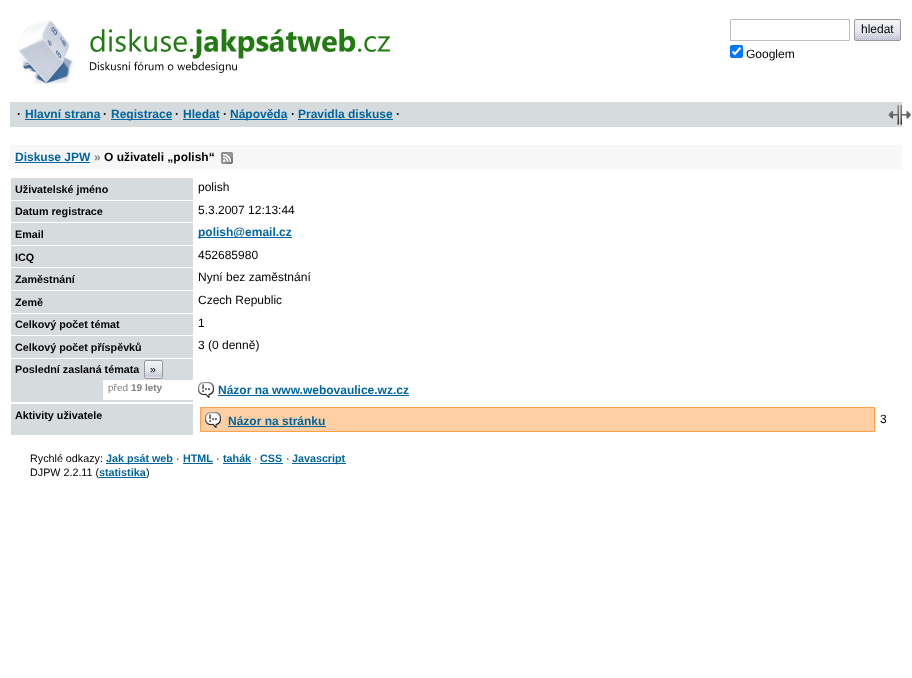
<svg xmlns="http://www.w3.org/2000/svg" width="912" height="678" viewBox="0 0 912 678">
  <rect width="100%" height="100%" fill="#fff"/>
  <image x="18" y="20" width="57" height="64" href="img/1.png"/>
  <image x="90" y="29" width="300" height="44" href="img/2.png"/>
  <path d="M730.5 19.5h119v21H730.5z" fill="none" stroke="#c0c0c0"/>
  <rect x="855" y="20" width="45" height="20" rx="1" fill="#d6dbde"/>
  <image x="855" y="20" width="45" height="20" href="img/3.png"/>
  <rect x="854.5" y="19.5" width="46" height="21" rx="1.5" fill="none" stroke="#999"/>
  <rect x="730" y="45" width="13" height="13" rx="2" fill="#0075ff"/>
  <path d="M732.5 51.5L735 54L740.5 47.5" fill="none" stroke="#fff" stroke-width="2.1"/>
  <path d="M10 102h892v25H10z" fill="#d6dbde"/>
  <path d="M25 119h75v1H25z" fill="#00659c"/>
  <path d="M111 119h61v1H111z" fill="#00659c"/>
  <path d="M183 119h36v1H183z" fill="#00659c"/>
  <path d="M230 119h57v1H230z" fill="#00659c"/>
  <path d="M298 119h95v1H298z" fill="#00659c"/>
  <image x="888" y="105" width="23" height="20" href="img/4.png"/>
  <path d="M10 145h892v24H10z" fill="#f7f7f7"/>
  <path d="M15 162h75v1H15z" fill="#00659c"/>
  <image x="221" y="152" width="12" height="12" href="img/5.png"/>
  <path d="M11 178h182v22H11z" fill="#d6dbde"/>
  <path d="M11 201h182v21H11z" fill="#d6dbde"/>
  <path d="M11 223h182v22H11z" fill="#d6dbde"/>
  <path d="M198 237h94v1H198z" fill="#00659c"/>
  <path d="M11 246h182v21H11z" fill="#d6dbde"/>
  <path d="M11 268h182v22H11z" fill="#d6dbde"/>
  <path d="M11 291h182v22H11z" fill="#d6dbde"/>
  <path d="M11 314h182v21H11z" fill="#d6dbde"/>
  <path d="M11 336h182v22H11z" fill="#d6dbde"/>
  <path d="M11 359h182v43H11z" fill="#d6dbde"/>
  <image x="145" y="361" width="17" height="17" href="img/6.png"/>
  <rect x="144.5" y="360.5" width="18" height="18" rx="1.5" fill="none" stroke="#999"/>
  <path d="M103 380h90v20H103z" fill="#fff"/>
  <image x="198" y="382" width="16" height="16" href="img/7.png"/>
  <path d="M218 395h191v1H218z" fill="#00659c"/>
  <path d="M11 404h182v31H11z" fill="#d6dbde"/>
  <path d="M200.5 407.5h674v24H200.5z" fill="#ffcfa4" stroke="#ffa24a"/>
  <image x="205" y="412" width="16" height="16" href="img/8.png"/>
  <path d="M228 426h98v1H228z" fill="#00659c"/>
  <path d="M106 463h67v1H106z" fill="#00659c"/>
  <path d="M183 463h30v1H183z" fill="#00659c"/>
  <path d="M223 463h28v1H223z" fill="#00659c"/>
  <path d="M260 463h23v1H260z" fill="#00659c"/>
  <path d="M292 463h54v1H292z" fill="#00659c"/>
  <g font-family="Liberation Sans" font-size="12" fill="#000">
    <text x="861" y="33">hledat</text>
    <text x="746" y="58">Googlem</text>
  </g>
  <text x="17" y="118" font-family="Liberation Sans" font-size="12" font-weight="bold" fill="#000">·</text>
  <text x="25" y="118" font-family="Liberation Sans" font-size="12" font-weight="bold" fill="#00659c">Hlavní strana</text>
  <text x="103" y="118" font-family="Liberation Sans" font-size="12" font-weight="bold" fill="#000">·</text>
  <text x="111" y="118" font-family="Liberation Sans" font-size="12" font-weight="bold" fill="#00659c">Registrace</text>
  <text x="175" y="118" font-family="Liberation Sans" font-size="12" font-weight="bold" fill="#000">·</text>
  <text x="183" y="118" font-family="Liberation Sans" font-size="12" font-weight="bold" fill="#00659c">Hledat</text>
  <text x="223" y="118" font-family="Liberation Sans" font-size="12" font-weight="bold" fill="#000">·</text>
  <text x="230" y="118" font-family="Liberation Sans" font-size="12" font-weight="bold" fill="#00659c">Nápověda</text>
  <text x="291" y="118" font-family="Liberation Sans" font-size="12" font-weight="bold" fill="#000">·</text>
  <text x="298" y="118" font-family="Liberation Sans" font-size="12" font-weight="bold" fill="#00659c">Pravidla diskuse</text>
  <text x="396" y="118" font-family="Liberation Sans" font-size="12" font-weight="bold" fill="#000">·</text>
  <text x="15" y="161" font-family="Liberation Sans" font-size="12" font-weight="bold" fill="#00659c">Diskuse JPW</text>
  <text x="94" y="161" font-family="Liberation Sans" font-size="12" font-weight="bold" fill="#808080">»</text>
  <text x="104" y="161" font-family="Liberation Sans" font-size="12" font-weight="bold" fill="#000">O uživateli „polish“</text>
  <text x="15" y="193" font-family="Liberation Sans" font-size="10.75" font-weight="bold" fill="#000">Uživatelské jméno</text>
  <text x="198" y="191" font-family="Liberation Sans" font-size="12" fill="#000">polish</text>
  <text x="15" y="215" font-family="Liberation Sans" font-size="10.75" font-weight="bold" fill="#000">Datum registrace</text>
  <text x="198" y="214" font-family="Liberation Sans" font-size="12" fill="#000">5.3.2007 12:13:44</text>
  <text x="15" y="238" font-family="Liberation Sans" font-size="10.75" font-weight="bold" fill="#000">Email</text>
  <text x="198" y="236" font-family="Liberation Sans" font-size="12" font-weight="bold" fill="#00659c">polish@email.cz</text>
  <text x="15" y="261" font-family="Liberation Sans" font-size="10.75" font-weight="bold" fill="#000">ICQ</text>
  <text x="198" y="259" font-family="Liberation Sans" font-size="12" fill="#000">452685980</text>
  <text x="15" y="283" font-family="Liberation Sans" font-size="10.75" font-weight="bold" fill="#000">Zaměstnání</text>
  <text x="198" y="281" font-family="Liberation Sans" font-size="12" fill="#000">Nyní bez zaměstnání</text>
  <text x="15" y="306" font-family="Liberation Sans" font-size="10.75" font-weight="bold" fill="#000">Země</text>
  <text x="198" y="304" font-family="Liberation Sans" font-size="12" fill="#000">Czech Republic</text>
  <text x="15" y="328" font-family="Liberation Sans" font-size="10.75" font-weight="bold" fill="#000">Celkový počet témat</text>
  <text x="198" y="327" font-family="Liberation Sans" font-size="12" fill="#000">1</text>
  <text x="15" y="351" font-family="Liberation Sans" font-size="10.75" font-weight="bold" fill="#000">Celkový počet příspěvků</text>
  <text x="198" y="349" font-family="Liberation Sans" font-size="12" fill="#000">3 (0 denně)</text>
  <text x="15" y="373" font-family="Liberation Sans" font-size="10.75" font-weight="bold" fill="#000">Poslední zaslaná témata</text>
  <text x="150" y="373" font-family="Liberation Sans" font-size="10.75" fill="#000">»</text>
  <text x="108" y="391" font-family="Liberation Sans" font-size="10" fill="#808080">před</text>
  <text x="131" y="391" font-family="Liberation Sans" font-size="10" font-weight="bold" fill="#808080">19 lety</text>
  <text x="218" y="394" font-family="Liberation Sans" font-size="12" font-weight="bold" fill="#00659c">Názor na www.webovaulice.wz.cz</text>
  <text x="15" y="419" font-family="Liberation Sans" font-size="10.75" font-weight="bold" fill="#000">Aktivity uživatele</text>
  <text x="228" y="425" font-family="Liberation Sans" font-size="12" font-weight="bold" fill="#00659c">Názor na stránku</text>
  <text x="880" y="423" font-family="Liberation Sans" font-size="12" fill="#000">3</text>
  <text x="30" y="462" font-family="Liberation Sans" font-size="10.75" fill="#000">Rychlé odkazy:</text>
  <text x="106" y="462" font-family="Liberation Sans" font-size="10.75" font-weight="bold" fill="#00659c">Jak psát web</text>
  <text x="176" y="462" font-family="Liberation Sans" font-size="10.75" fill="#000">·</text>
  <text x="183" y="462" font-family="Liberation Sans" font-size="10.75" font-weight="bold" fill="#00659c">HTML</text>
  <text x="216" y="462" font-family="Liberation Sans" font-size="10.75" fill="#000">·</text>
  <text x="223" y="462" font-family="Liberation Sans" font-size="10.75" font-weight="bold" fill="#00659c">tahák</text>
  <text x="254" y="462" font-family="Liberation Sans" font-size="10.75" fill="#000">·</text>
  <text x="260" y="462" font-family="Liberation Sans" font-size="10.75" font-weight="bold" fill="#00659c">CSS</text>
  <text x="286" y="462" font-family="Liberation Sans" font-size="10.75" fill="#000">·</text>
  <text x="292" y="462" font-family="Liberation Sans" font-size="10.75" font-weight="bold" fill="#00659c">Javascript</text>
  <text x="30" y="476" font-family="Liberation Sans" font-size="10.75" fill="#000">DJPW 2.2.11 (</text>
  <path d="M99 477h47v1H99z" fill="#00659c"/>
  <text x="99" y="476" font-family="Liberation Sans" font-size="10.75" font-weight="bold" fill="#00659c">statistika</text>
  <text x="146" y="476" font-family="Liberation Sans" font-size="10.75" fill="#000">)</text>
</svg>
